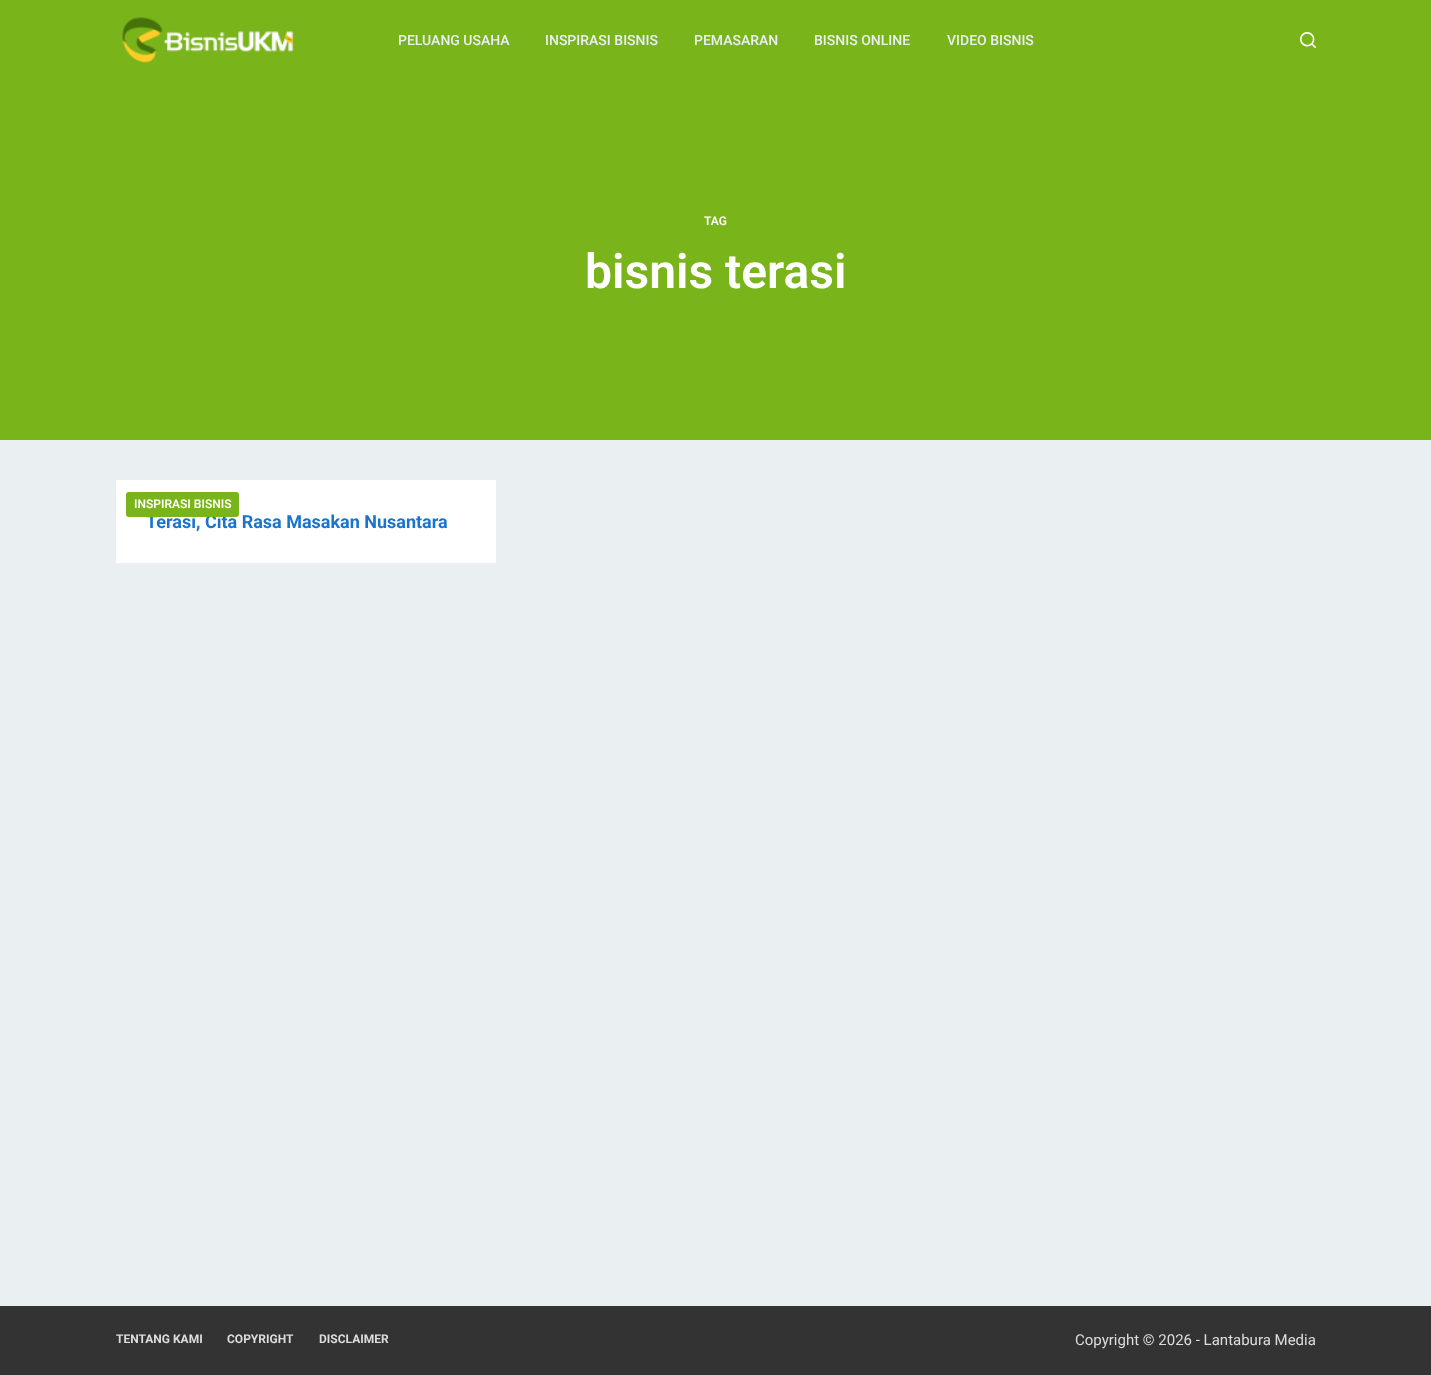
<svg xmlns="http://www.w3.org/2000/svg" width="1431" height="1375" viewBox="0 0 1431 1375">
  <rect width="100%" height="100%" fill="#eaeff2"/>
  <path d="M0 0h1431v440H0z" fill="#79b41b"/>
  <image x="122" y="17" width="172" height="46" href="img/1.png"/>
  <image x="1300" y="32" width="16" height="16" href="img/2.png"/>
  <path d="M116 480h380v83H116z" fill="#fff"/>
  <path d="M0 1306h1431v69H0z" fill="#333"/>
  <g font-family="Roboto" font-size="14" font-weight="500" fill="#eaeff2">
    <text x="398" y="45">PELUANG USAHA</text>
    <text x="545" y="45">INSPIRASI BISNIS</text>
    <text x="694" y="45">PEMASARAN</text>
    <text x="814" y="45">BISNIS ONLINE</text>
    <text x="947" y="45">VIDEO BISNIS</text>
  </g>
  <text x="704" y="225" font-family="Roboto" font-size="12" font-weight="600" fill="#fff">TAG</text>
  <text x="585" y="288" font-family="Roboto" font-size="48" font-weight="600" fill="#fff">bisnis terasi</text>
  <text x="146" y="528" font-family="Roboto" font-size="18" font-weight="bold" fill="#1974ce">Terasi, Cita Rasa Masakan Nusantara</text>
  <rect x="126" y="492" width="113" height="25" rx="3" fill="#79b41b"/>
  <text x="134" y="508" font-family="Roboto" font-size="12" font-weight="600" fill="#fff">INSPIRASI BISNIS</text>
  <g font-family="Roboto" font-size="12" font-weight="bold" fill="#ddd">
    <text x="116" y="1343">TENTANG KAMI</text>
    <text x="227" y="1343">COPYRIGHT</text>
    <text x="319" y="1343">DISCLAIMER</text>
  </g>
  <text x="1075" y="1345" font-family="Roboto" font-size="15" fill="#ddd">Copyright © 2026 - Lantabura Media</text>
</svg>
